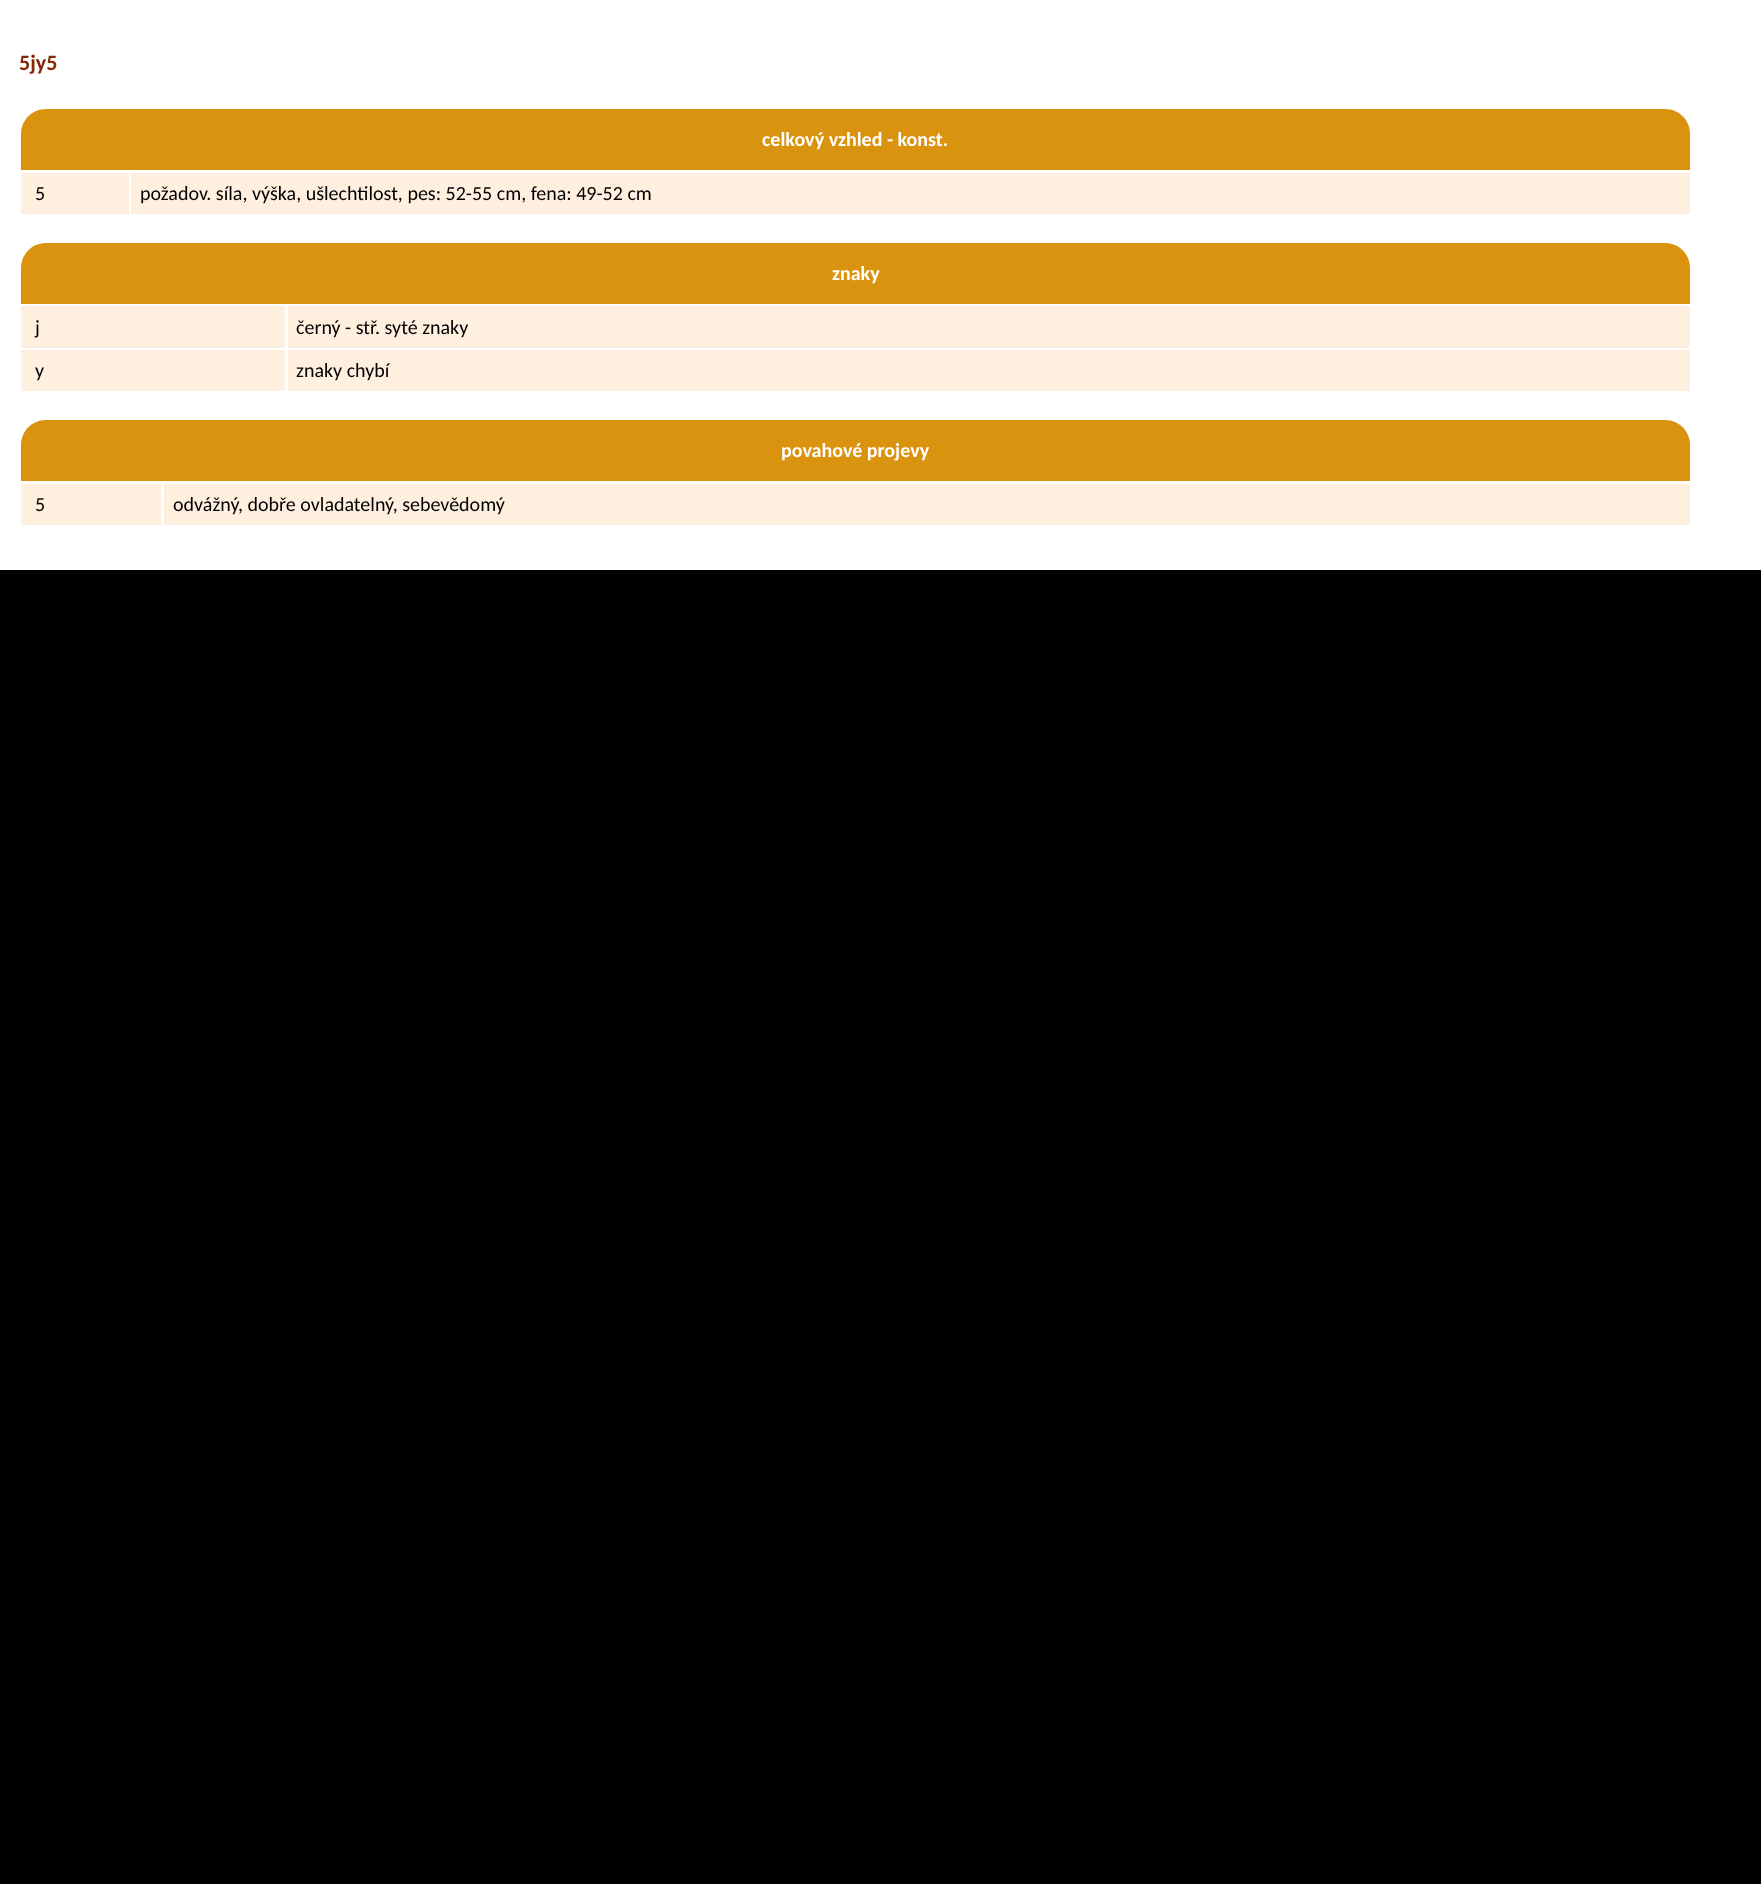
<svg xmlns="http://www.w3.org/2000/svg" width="1761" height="1884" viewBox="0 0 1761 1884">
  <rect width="100%" height="100%" fill="#000"/>
  <path d="M0 0h1761v570H0z" fill="#fff"/>
  <path d="M46 109H1665C1679 109 1690 120 1690 134V170H21V134C21 120 32 109 46 109Z" fill="#d9930e"/>
  <path d="M21 173h108v41H21z" fill="#ffefdf"/>
  <path d="M131 173h1559v41H131z" fill="#ffefdf"/>
  <path d="M46 243H1665C1679 243 1690 254 1690 268V304H21V268C21 254 32 243 46 243Z" fill="#d9930e"/>
  <path d="M21 306h264v42H21z" fill="#ffefdf"/>
  <path d="M288 306h1402v42H288z" fill="#ffefdf"/>
  <path d="M21 350h264v41H21z" fill="#ffefdf"/>
  <path d="M288 350h1402v41H288z" fill="#ffefdf"/>
  <path d="M46 420H1665C1679 420 1690 431 1690 445V481H21V445C21 431 32 420 46 420Z" fill="#d9930e"/>
  <path d="M21 484h140v41H21z" fill="#ffefdf"/>
  <path d="M164 484h1526v41H164z" fill="#ffefdf"/>
  <text x="19" y="70" font-family="Carlito" font-size="22" font-weight="bold" fill="#862804">5jy5</text>
  <text x="762" y="146" font-family="Carlito" font-size="20" font-weight="bold" fill="#fff">celkový vzhled - konst.</text>
  <g font-family="Carlito" font-size="20" fill="#000">
    <text x="35" y="200">5</text>
    <text x="140" y="200">požadov. síla, výška, ušlechtilost, pes: 52-55 cm, fena: 49-52 cm</text>
  </g>
  <text x="832" y="280" font-family="Carlito" font-size="20" font-weight="bold" fill="#fff">znaky</text>
  <g font-family="Carlito" font-size="20" fill="#000">
    <text x="35" y="334">j</text>
    <text x="296" y="334">černý - stř. syté znaky</text>
    <text x="35" y="377">y</text>
    <text x="296" y="377">znaky chybí</text>
  </g>
  <text x="781" y="457" font-family="Carlito" font-size="20" font-weight="bold" fill="#fff">povahové projevy</text>
  <g font-family="Carlito" font-size="20" fill="#000">
    <text x="35" y="511">5</text>
    <text x="173" y="511">odvážný, dobře ovladatelný, sebevědomý</text>
  </g>
</svg>
